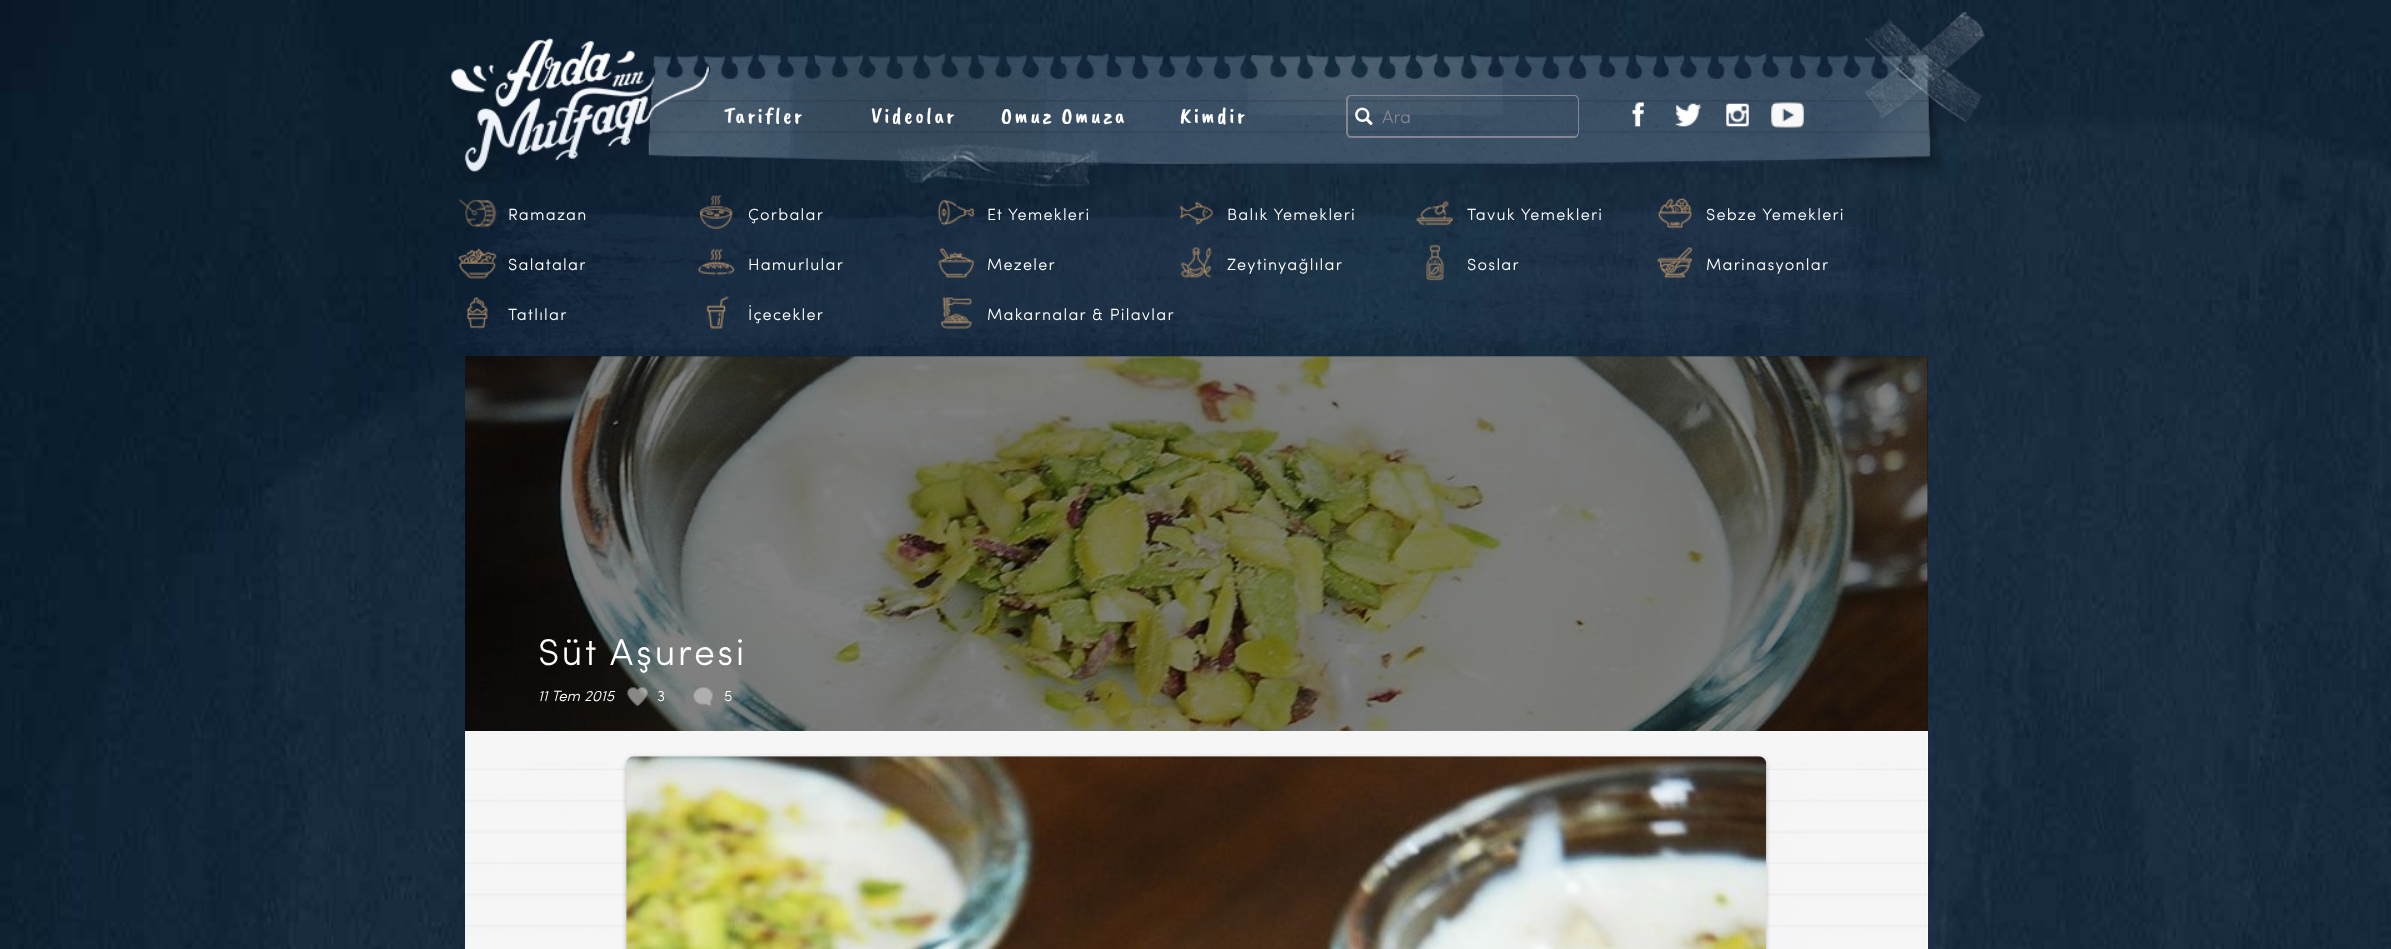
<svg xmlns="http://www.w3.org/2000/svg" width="2391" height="949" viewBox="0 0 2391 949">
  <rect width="100%" height="100%" fill="#fff"/>
  <image x="0" y="0" width="2391" height="949" href="img/1.png"/>
  <image x="648" y="11" width="1337" height="176" href="img/2.png"/>
  <image x="451" y="38" width="258" height="144" href="img/3.png"/>
  <path d="M1351 95H1380V138H1351C1348 138 1346 135 1346 132V100C1346 97 1348 95 1351 95ZM1351 96H1380V136H1351C1349 136 1348 135 1348 132V100C1348 98 1349 96 1351 96Z" fill="#878494" fill-rule="evenodd"/>
  <image x="1355" y="107" width="18" height="19" href="img/4.png"/>
  <path d="M1380 95H1574C1577 95 1579 97 1579 100V132C1579 135 1577 138 1574 138H1380ZM1380 96H1574C1576 96 1578 98 1578 100V132C1578 135 1576 136 1574 136H1380Z" fill="#878494" fill-rule="evenodd"/>
  <image x="1632" y="102" width="12" height="25" href="img/5.png"/>
  <image x="1675" y="103" width="27" height="24" href="img/6.png"/>
  <image x="1726" y="103" width="23" height="24" href="img/7.png"/>
  <image x="1771" y="102" width="33" height="26" href="img/8.png"/>
  <image x="453" y="208" width="1491" height="144" href="img/9.png"/>
  <image x="458" y="198" width="39" height="30" href="img/10.png"/>
  <image x="699" y="195" width="34" height="34" href="img/11.png"/>
  <image x="937" y="199" width="38" height="27" href="img/12.png"/>
  <image x="1179" y="201" width="35" height="24" href="img/13.png"/>
  <image x="1416" y="201" width="38" height="25" href="img/14.png"/>
  <image x="1657" y="197" width="36" height="32" href="img/15.png"/>
  <image x="458" y="248" width="39" height="31" href="img/16.png"/>
  <image x="697" y="248" width="38" height="28" href="img/17.png"/>
  <image x="938" y="247" width="36" height="31" href="img/18.png"/>
  <image x="1181" y="247" width="31" height="31" href="img/19.png"/>
  <image x="1426" y="244" width="18" height="37" href="img/20.png"/>
  <image x="1657" y="247" width="36" height="31" href="img/21.png"/>
  <image x="466" y="296" width="22" height="33" href="img/22.png"/>
  <image x="706" y="296" width="23" height="33" href="img/23.png"/>
  <image x="940" y="297" width="33" height="32" href="img/24.png"/>
  <image x="465" y="356" width="1463" height="375" href="img/25.png"/>
  <path d="M465 356h1463v375H465z" fill="#00000080"/>
  <image x="627" y="687" width="21" height="19" href="img/26.png"/>
  <image x="693" y="687" width="20" height="19" href="img/27.png"/>
  <path d="M465 731h1463v218H465z" fill="#fff"/>
  <image x="465" y="731" width="1463" height="218" href="img/28.png"/>
  <rect x="626" y="758" width="1140" height="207" rx="8" fill="#0000003b" filter="blur(2.5px)"/>
  <image x="626" y="756" width="1141" height="193" href="img/29.png"/>
  <g font-family="Caveat Brush" font-size="22.5" letter-spacing="2.5" fill="#fff">
    <text x="724" y="123">Tarifler</text>
    <text x="871" y="123">Videolar</text>
    <text x="1001" y="123">Omuz Omuza</text>
    <text x="1180" y="123">Kimdir</text>
  </g>
  <text x="1382" y="123" font-family="Sofia" font-size="18" fill="#878494">Ara</text>
  <g font-family="Sofia" font-size="16.25" letter-spacing="1.25" fill="#fff">
    <text x="508" y="220">Ramazan</text>
    <text x="748" y="220">Çorbalar</text>
    <text x="987" y="220">Et Yemekleri</text>
    <text x="1227" y="220">Balık Yemekleri</text>
    <text x="1467" y="220">Tavuk Yemekleri</text>
    <text x="1706" y="220">Sebze Yemekleri</text>
    <text x="508" y="270">Salatalar</text>
    <text x="748" y="270">Hamurlular</text>
    <text x="987" y="270">Mezeler</text>
    <text x="1227" y="270">Zeytinyağlılar</text>
    <text x="1467" y="270">Soslar</text>
    <text x="1706" y="270">Marinasyonlar</text>
    <text x="508" y="320">Tatlılar</text>
    <text x="748" y="320">İçecekler</text>
    <text x="987" y="320">Makarnalar &amp; Pilavlar</text>
  </g>
  <text x="538" y="665" font-family="Sofia" font-size="37.5" letter-spacing="2.5" fill="#fff">Süt Aşuresi</text>
  <text x="538" y="701" font-family="Sofia" font-size="15" font-style="italic" fill="#fff">11 Tem 2015</text>
  <g font-family="Sofia" font-size="15" fill="#fff">
    <text x="657" y="701">3</text>
    <text x="724" y="701">5</text>
  </g>
</svg>
